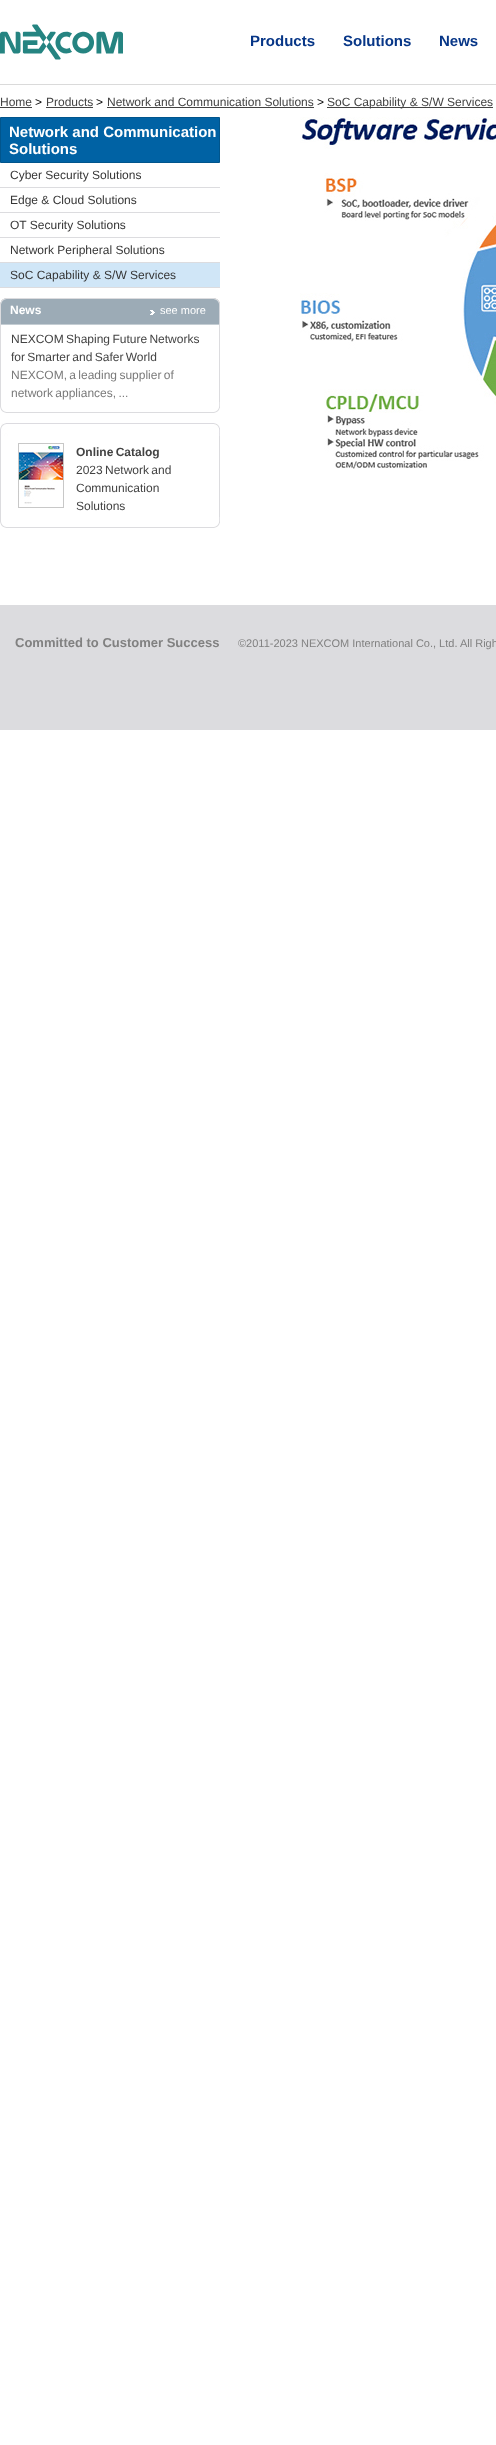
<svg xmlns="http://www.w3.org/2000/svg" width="496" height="2445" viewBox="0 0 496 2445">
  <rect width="100%" height="100%" fill="#fff"/>
  <image x="0" y="24" width="123" height="36" href="img/1.png"/>
  <path d="M0 84h496v1H0z" fill="#dadada"/>
  <path d="M0 107h32v1H0z" fill="#434343"/>
  <path d="M46 107h47v1H46z" fill="#434343"/>
  <path d="M107 107h207v1H107z" fill="#434343"/>
  <path d="M327 107h166v1H327z" fill="#434343"/>
  <path d="M0.5 117.5h219v45H0.5z" fill="#0062a4" stroke="#01558c"/>
  <path d="M0 187h220v1H0z" fill="#dcdcdf"/>
  <path d="M0 212h220v1H0z" fill="#dcdcdf"/>
  <path d="M0 237h220v1H0z" fill="#dcdcdf"/>
  <path d="M0 262h220v1H0z" fill="#dcdcdf"/>
  <path d="M0 263h220v24H0z" fill="#d0e6f7"/>
  <path d="M0 287h220v1H0z" fill="#dcdcdf"/>
  <image x="0" y="298" width="220" height="27" href="img/2.png"/>
  <image x="150" y="310" width="5" height="5" href="img/3.png"/>
  <path d="M219 325h1v77H219z" fill="#dcdcdf"/>
  <path d="M0 325h1v77H0z" fill="#dcdcdf"/>
  <image x="0" y="402" width="220" height="11" href="img/4.png"/>
  <image x="0" y="423" width="220" height="13" href="img/5.png"/>
  <path d="M219 436h1v81H219z" fill="#dcdcdf"/>
  <path d="M0 436h1v81H0z" fill="#dcdcdf"/>
  <image x="18" y="443" width="46" height="65" href="img/6.png"/>
  <image x="0" y="517" width="220" height="11" href="img/4.png"/>
  <image x="300" y="117" width="196" height="352" href="img/7.png"/>
  <path d="M0 605h496v125H0z" fill="#dcdcdf"/>
  <g font-family="Liberation Sans" font-size="15" font-weight="bold" fill="#073687">
    <text x="250" y="46">Products</text>
    <text x="343" y="46">Solutions</text>
    <text x="439" y="46">News</text>
  </g>
  <text x="0" y="106" font-family="Liberation Sans" font-size="12" fill="#434343">Home</text>
  <text x="35" y="106" font-family="Liberation Sans" font-size="12" fill="#000">&gt;</text>
  <text x="46" y="106" font-family="Liberation Sans" font-size="12" fill="#434343">Products</text>
  <text x="96" y="106" font-family="Liberation Sans" font-size="12" fill="#000">&gt;</text>
  <text x="107" y="106" font-family="Liberation Sans" font-size="12" fill="#434343">Network and Communication Solutions</text>
  <text x="317" y="106" font-family="Liberation Sans" font-size="12" fill="#000">&gt;</text>
  <text x="327" y="106" font-family="Liberation Sans" font-size="12" fill="#434343">SoC Capability &amp; S/W Services</text>
  <g font-family="Liberation Sans" font-size="15" font-weight="bold" fill="#fff">
    <text x="9" y="137">Network and Communication</text>
    <text x="9" y="154">Solutions</text>
  </g>
  <g font-family="Liberation Sans" font-size="12" fill="#363636">
    <text x="10" y="179">Cyber Security Solutions</text>
    <text x="10" y="204">Edge &amp; Cloud Solutions</text>
    <text x="10" y="229">OT Security Solutions</text>
    <text x="10" y="254">Network Peripheral Solutions</text>
    <text x="10" y="279">SoC Capability &amp; S/W Services</text>
  </g>
  <text x="10" y="314" font-family="Liberation Sans" font-size="12" font-weight="bold" fill="#fff">News</text>
  <text x="160" y="314" font-family="Liberation Sans" font-size="11" fill="#fff">see more</text>
  <g font-family="Liberation Sans" font-size="12" fill="#434343">
    <text x="11" y="343" word-spacing="-1">NEXCOM Shaping Future Networks</text>
    <text x="11" y="361" word-spacing="-1">for Smarter and Safer World</text>
  </g>
  <g font-family="Liberation Sans" font-size="12" fill="#7a7a7a">
    <text x="11" y="379" word-spacing="-1">NEXCOM, a leading supplier of</text>
    <text x="11" y="397" word-spacing="-1">network appliances, ...</text>
  </g>
  <text x="76" y="456" word-spacing="-1" font-family="Liberation Sans" font-size="12" font-weight="bold" fill="#434343">Online Catalog</text>
  <g font-family="Liberation Sans" font-size="12" fill="#434343">
    <text x="76" y="474" word-spacing="-1">2023 Network and</text>
    <text x="76" y="492">Communication</text>
    <text x="76" y="510">Solutions</text>
  </g>
  <text x="15" y="647" font-family="Liberation Sans" font-size="13" font-weight="bold" fill="#818181">Committed to Customer Success</text>
  <text x="238" y="647" font-family="Liberation Sans" font-size="11" fill="#818181">©2011-2023 NEXCOM International Co., Ltd. All Righ</text>
</svg>
